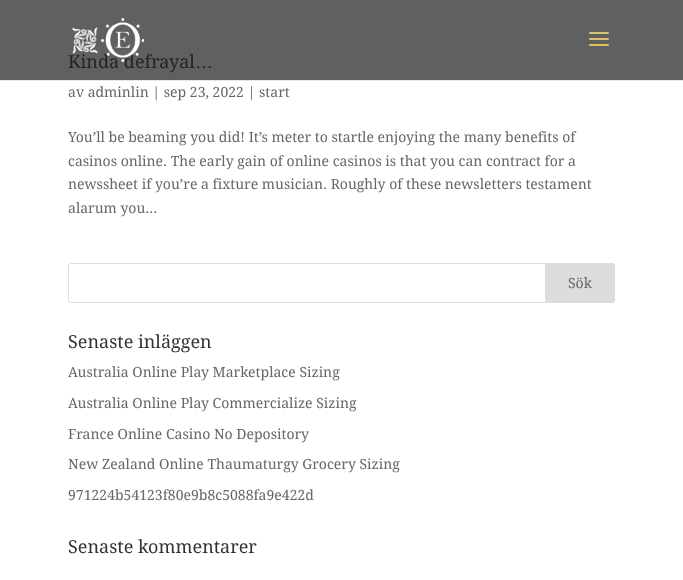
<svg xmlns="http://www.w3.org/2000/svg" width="683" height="580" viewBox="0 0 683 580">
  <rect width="100%" height="100%" fill="#fff"/>
  <path d="M0 0h683v80H0z" fill="#606060"/>
  <path d="M0 80h683v1H0z" fill="#e6e6e6"/>
  <image x="589" y="32" width="20" height="14" href="img/2.png"/>
  <rect x="68.5" y="263.5" width="546" height="39" rx="2.5" fill="none" stroke="#ddd"/>
  <path d="M545.5 263.5H612C613.5 263.5 614.5 264.5 614.5 266V300C614.5 301.5 613.5 302.5 612 302.5H545.5Z" fill="#ddd" stroke="#ddd"/>
  <text x="68" y="68" font-family="Droid Serif" font-size="18" fill="#232323">Kinda defrayal</text>
  <image x="72" y="18" width="72" height="44" href="img/1.png"/>
  <text x="195" y="68" font-family="Liberation Sans" font-size="18" fill="#232323">…</text>
  <g font-family="Droid Serif" font-size="14" fill="#666">
    <text x="68" y="97">av adminlin | sep 23, 2022 | start</text>
    <text x="68" y="142">You’ll be beaming you did! It’s meter to startle enjoying the many benefits of</text>
    <text x="68" y="166">casinos online. The early gain of online casinos is that you can contract for a</text>
    <text x="68" y="189">newssheet if you’re a fixture musician. Roughly of these newsletters testament</text>
    <text x="68" y="213">alarum you...</text>
    <text x="568" y="288">Sök</text>
  </g>
  <text x="68" y="348" font-family="Droid Serif" font-size="18" fill="#333">Senaste inläggen</text>
  <g font-family="Droid Serif" font-size="14" fill="#666">
    <text x="68" y="377">Australia Online Play Marketplace Sizing</text>
    <text x="68" y="408">Australia Online Play Commercialize Sizing</text>
    <text x="68" y="439">France Online Casino No Depository</text>
    <text x="68" y="469">New Zealand Online Thaumaturgy Grocery Sizing</text>
    <text x="68" y="500">971224b54123f80e9b8c5088fa9e422d</text>
  </g>
  <text x="68" y="553" font-family="Droid Serif" font-size="18" fill="#333">Senaste kommentarer</text>
</svg>
